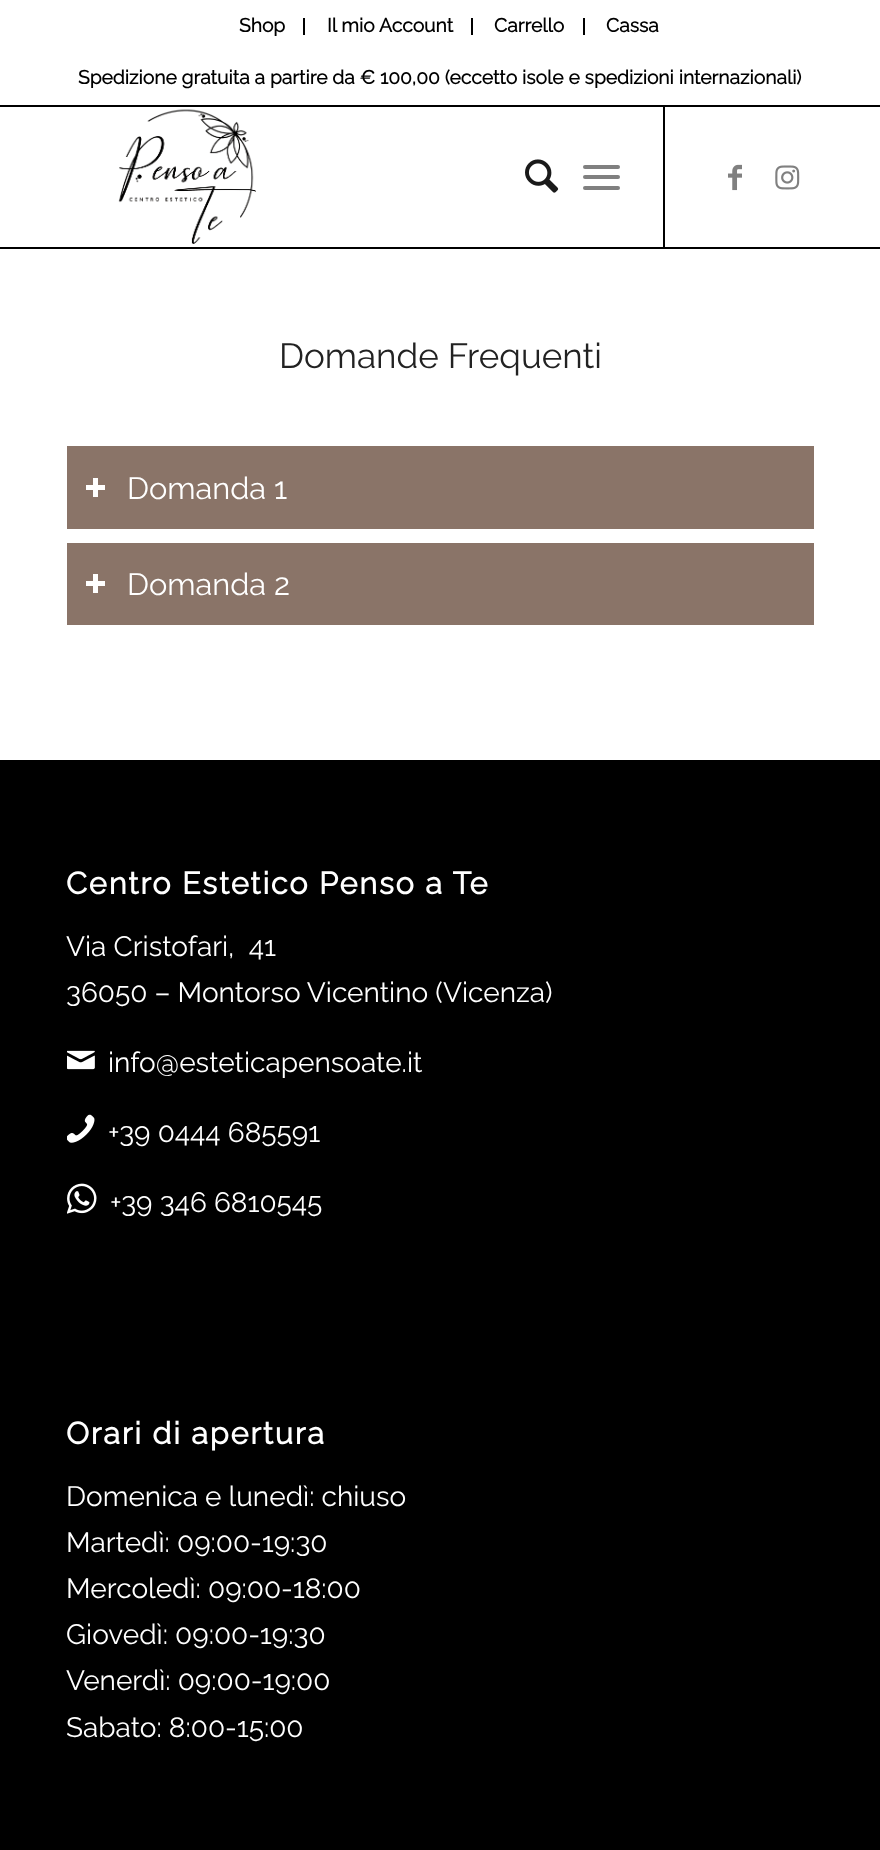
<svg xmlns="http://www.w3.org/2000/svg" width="880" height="1850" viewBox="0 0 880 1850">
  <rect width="100%" height="100%" fill="#fff"/>
  <path d="M0 105h880v2H0z" fill="#000"/>
  <path d="M303 18h2v17H303z" fill="#000"/>
  <path d="M471 18h2v17H471z" fill="#000"/>
  <path d="M583 18h2v17H583z" fill="#000"/>
  <path d="M0 247h880v2H0z" fill="#000"/>
  <image x="118" y="109" width="138" height="135" href="img/1.png"/>
  <path d="M663 107h2v140H663z" fill="#000"/>
  <image x="525" y="159" width="34" height="34" href="img/2.png"/>
  <rect x="583" y="175" width="37" height="4" rx="2" fill="#808080"/>
  <rect x="583" y="165" width="37" height="4" rx="2" fill="#808080"/>
  <rect x="583" y="186" width="37" height="4" rx="2" fill="#808080"/>
  <image x="728" y="164" width="14" height="27" href="img/3.png"/>
  <image x="775" y="165" width="25" height="25" href="img/4.png"/>
  <path d="M67 446h747v83H67z" fill="#8a7468"/>
  <path d="M93 478h5v19H93z" fill="#fff"/>
  <path d="M86 485h19v5H86z" fill="#fff"/>
  <path d="M67 543h747v82H67z" fill="#8a7468"/>
  <path d="M93 574h5v19H93z" fill="#fff"/>
  <path d="M86 581h19v5H86z" fill="#fff"/>
  <path d="M0 760h880v1090H0z" fill="#000"/>
  <image x="67" y="1050" width="28" height="20" href="img/5.png"/>
  <image x="67" y="1114" width="28" height="29" href="img/6.png"/>
  <image x="67" y="1183" width="30" height="31" href="img/7.png"/>
  <g font-family="Raleway" font-size="19.25" font-weight="bold" fill="#000">
    <text x="239" y="32">Shop</text>
    <text x="327" y="32">Il mio Account</text>
    <text x="494" y="32">Carrello</text>
    <text x="606" y="32">Cassa</text>
    <text x="78" y="84">Spedizione gratuita a partire da € 100,00 (eccetto isole e spedizioni internazionali)</text>
  </g>
  <text x="279" y="368" font-family="Raleway" font-size="35" font-weight="100" fill="#222">Domande Frequenti</text>
  <g font-family="Raleway" font-size="30.75" font-weight="100" fill="#fff">
    <text x="127" y="499">Domanda 1</text>
    <text x="127" y="595">Domanda 2</text>
  </g>
  <text x="66" y="894" font-family="Raleway" font-size="30.75" font-weight="bold" letter-spacing="1.75" fill="#fff">Centro Estetico Penso a Te</text>
  <g font-family="Raleway" font-size="28" font-weight="100" fill="#fff">
    <text x="66" y="956" xml:space="preserve">Via Cristofari,  41</text>
    <text x="66" y="1002">36050 – Montorso Vicentino (Vicenza)</text>
    <text x="108" y="1072">info@esteticapensoate.it</text>
    <text x="108" y="1142">+39 0444 685591</text>
    <text x="110" y="1212">+39 346 6810545</text>
  </g>
  <text x="66" y="1444" font-family="Raleway" font-size="30.75" font-weight="bold" letter-spacing="1.75" fill="#fff">Orari di apertura</text>
  <g font-family="Raleway" font-size="28" font-weight="100" fill="#fff">
    <text x="66" y="1506">Domenica e lunedì: chiuso</text>
    <text x="66" y="1552">Martedì: 09:00-19:30</text>
    <text x="66" y="1598">Mercoledì: 09:00-18:00</text>
    <text x="66" y="1644">Giovedì: 09:00-19:30</text>
    <text x="66" y="1690">Venerdì: 09:00-19:00</text>
    <text x="66" y="1737">Sabato: 8:00-15:00</text>
  </g>
</svg>
